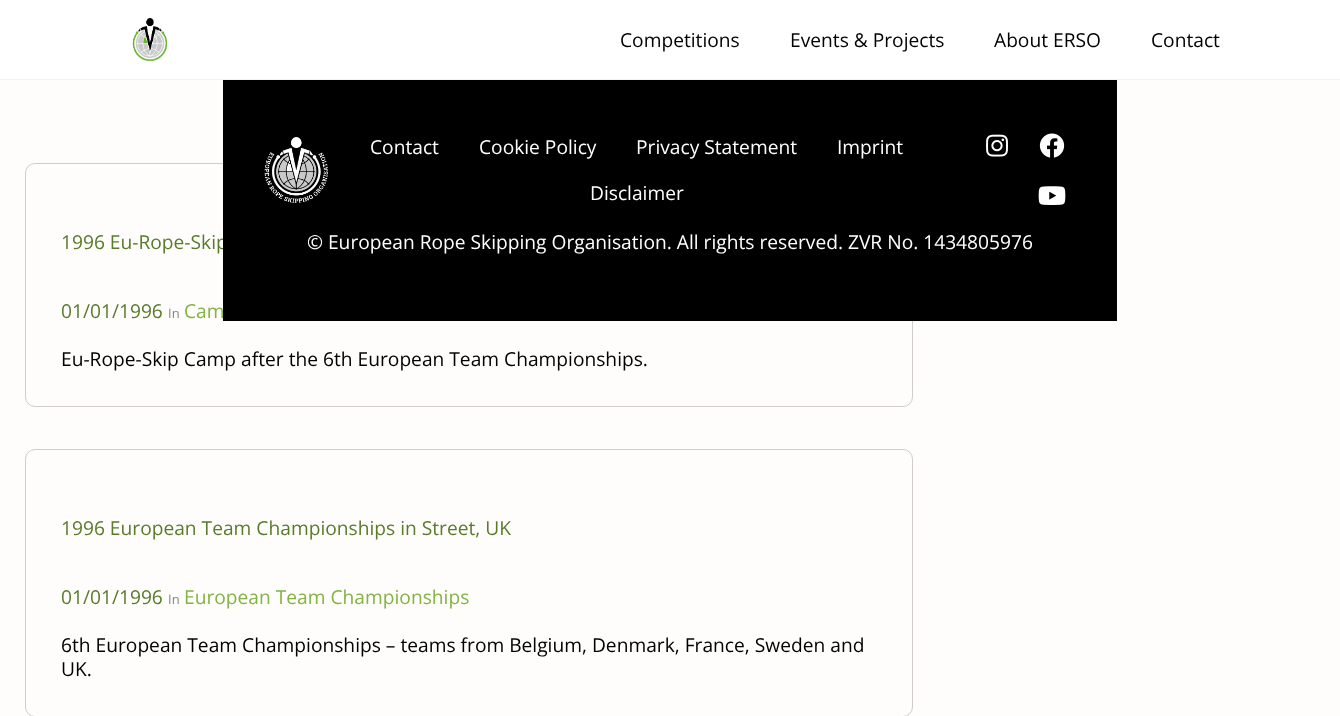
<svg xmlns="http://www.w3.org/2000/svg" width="1340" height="716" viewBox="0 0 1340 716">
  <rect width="100%" height="100%" fill="#fefdfc"/>
  <path d="M0 0h1340v79H0z" fill="#fff"/>
  <path d="M0 79h1340v1H0z" fill="#f1f6e9"/>
  <image x="132" y="18" width="36" height="43" href="img/1.png"/>
  <rect x="25.5" y="163.5" width="887" height="243" rx="9.5" fill="none" stroke="#cfccc9"/>
  <rect x="25.5" y="449.5" width="887" height="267" rx="9.5" fill="none" stroke="#cfccc9"/>
  <g font-family="Open Sans" font-size="19.2" fill="#000">
    <text x="620" y="47">Competitions</text>
    <text x="790" y="47">Events &amp; Projects</text>
    <text x="994" y="47">About ERSO</text>
    <text x="1151" y="47">Contact</text>
  </g>
  <g font-family="Open Sans" font-size="19.2" fill="#597b2b">
    <text x="61" y="249">1996 Eu-Rope-Skip</text>
    <text x="61" y="318">01/01/1996</text>
  </g>
  <text x="168" y="318" font-family="Open Sans" font-size="13" fill="#858584">In</text>
  <text x="184" y="318" font-family="Open Sans" font-size="19.2" fill="#83b342">Cam</text>
  <path d="M223 80h894v241H223z" fill="#000"/>
  <g font-family="Open Sans" font-size="19.2" fill="#fff">
    <text x="590" y="200">Disclaimer</text>
    <text x="837" y="154">Imprint</text>
    <text x="636" y="154">Privacy Statement</text>
    <text x="479" y="154">Cookie Policy</text>
    <text x="370" y="154">Contact</text>
    <text x="307" y="249">© European Rope Skipping Organisation. All rights reserved. ZVR No. 1434805976</text>
  </g>
  <image x="1038" y="186" width="28" height="19" href="img/5.png"/>
  <image x="1039" y="133" width="26" height="25" href="img/4.png"/>
  <image x="986" y="134" width="22" height="23" href="img/3.png"/>
  <image x="264" y="137" width="64" height="66" href="img/2.png"/>
  <text x="61" y="366" font-family="Open Sans" font-size="19.2" fill="#000">Eu-Rope-Skip Camp after the 6th European Team Championships.</text>
  <g font-family="Open Sans" font-size="19.2" fill="#597b2b">
    <text x="61" y="535">1996 European Team Championships in Street, UK</text>
    <text x="61" y="604">01/01/1996</text>
  </g>
  <text x="168" y="604" font-family="Open Sans" font-size="13" fill="#858584">In</text>
  <text x="184" y="604" font-family="Open Sans" font-size="19.2" fill="#83b342">European Team Championships</text>
  <g font-family="Open Sans" font-size="19.2" fill="#000">
    <text x="61" y="652">6th European Team Championships – teams from Belgium, Denmark, France, Sweden and</text>
    <text x="61" y="676">UK.</text>
  </g>
</svg>
